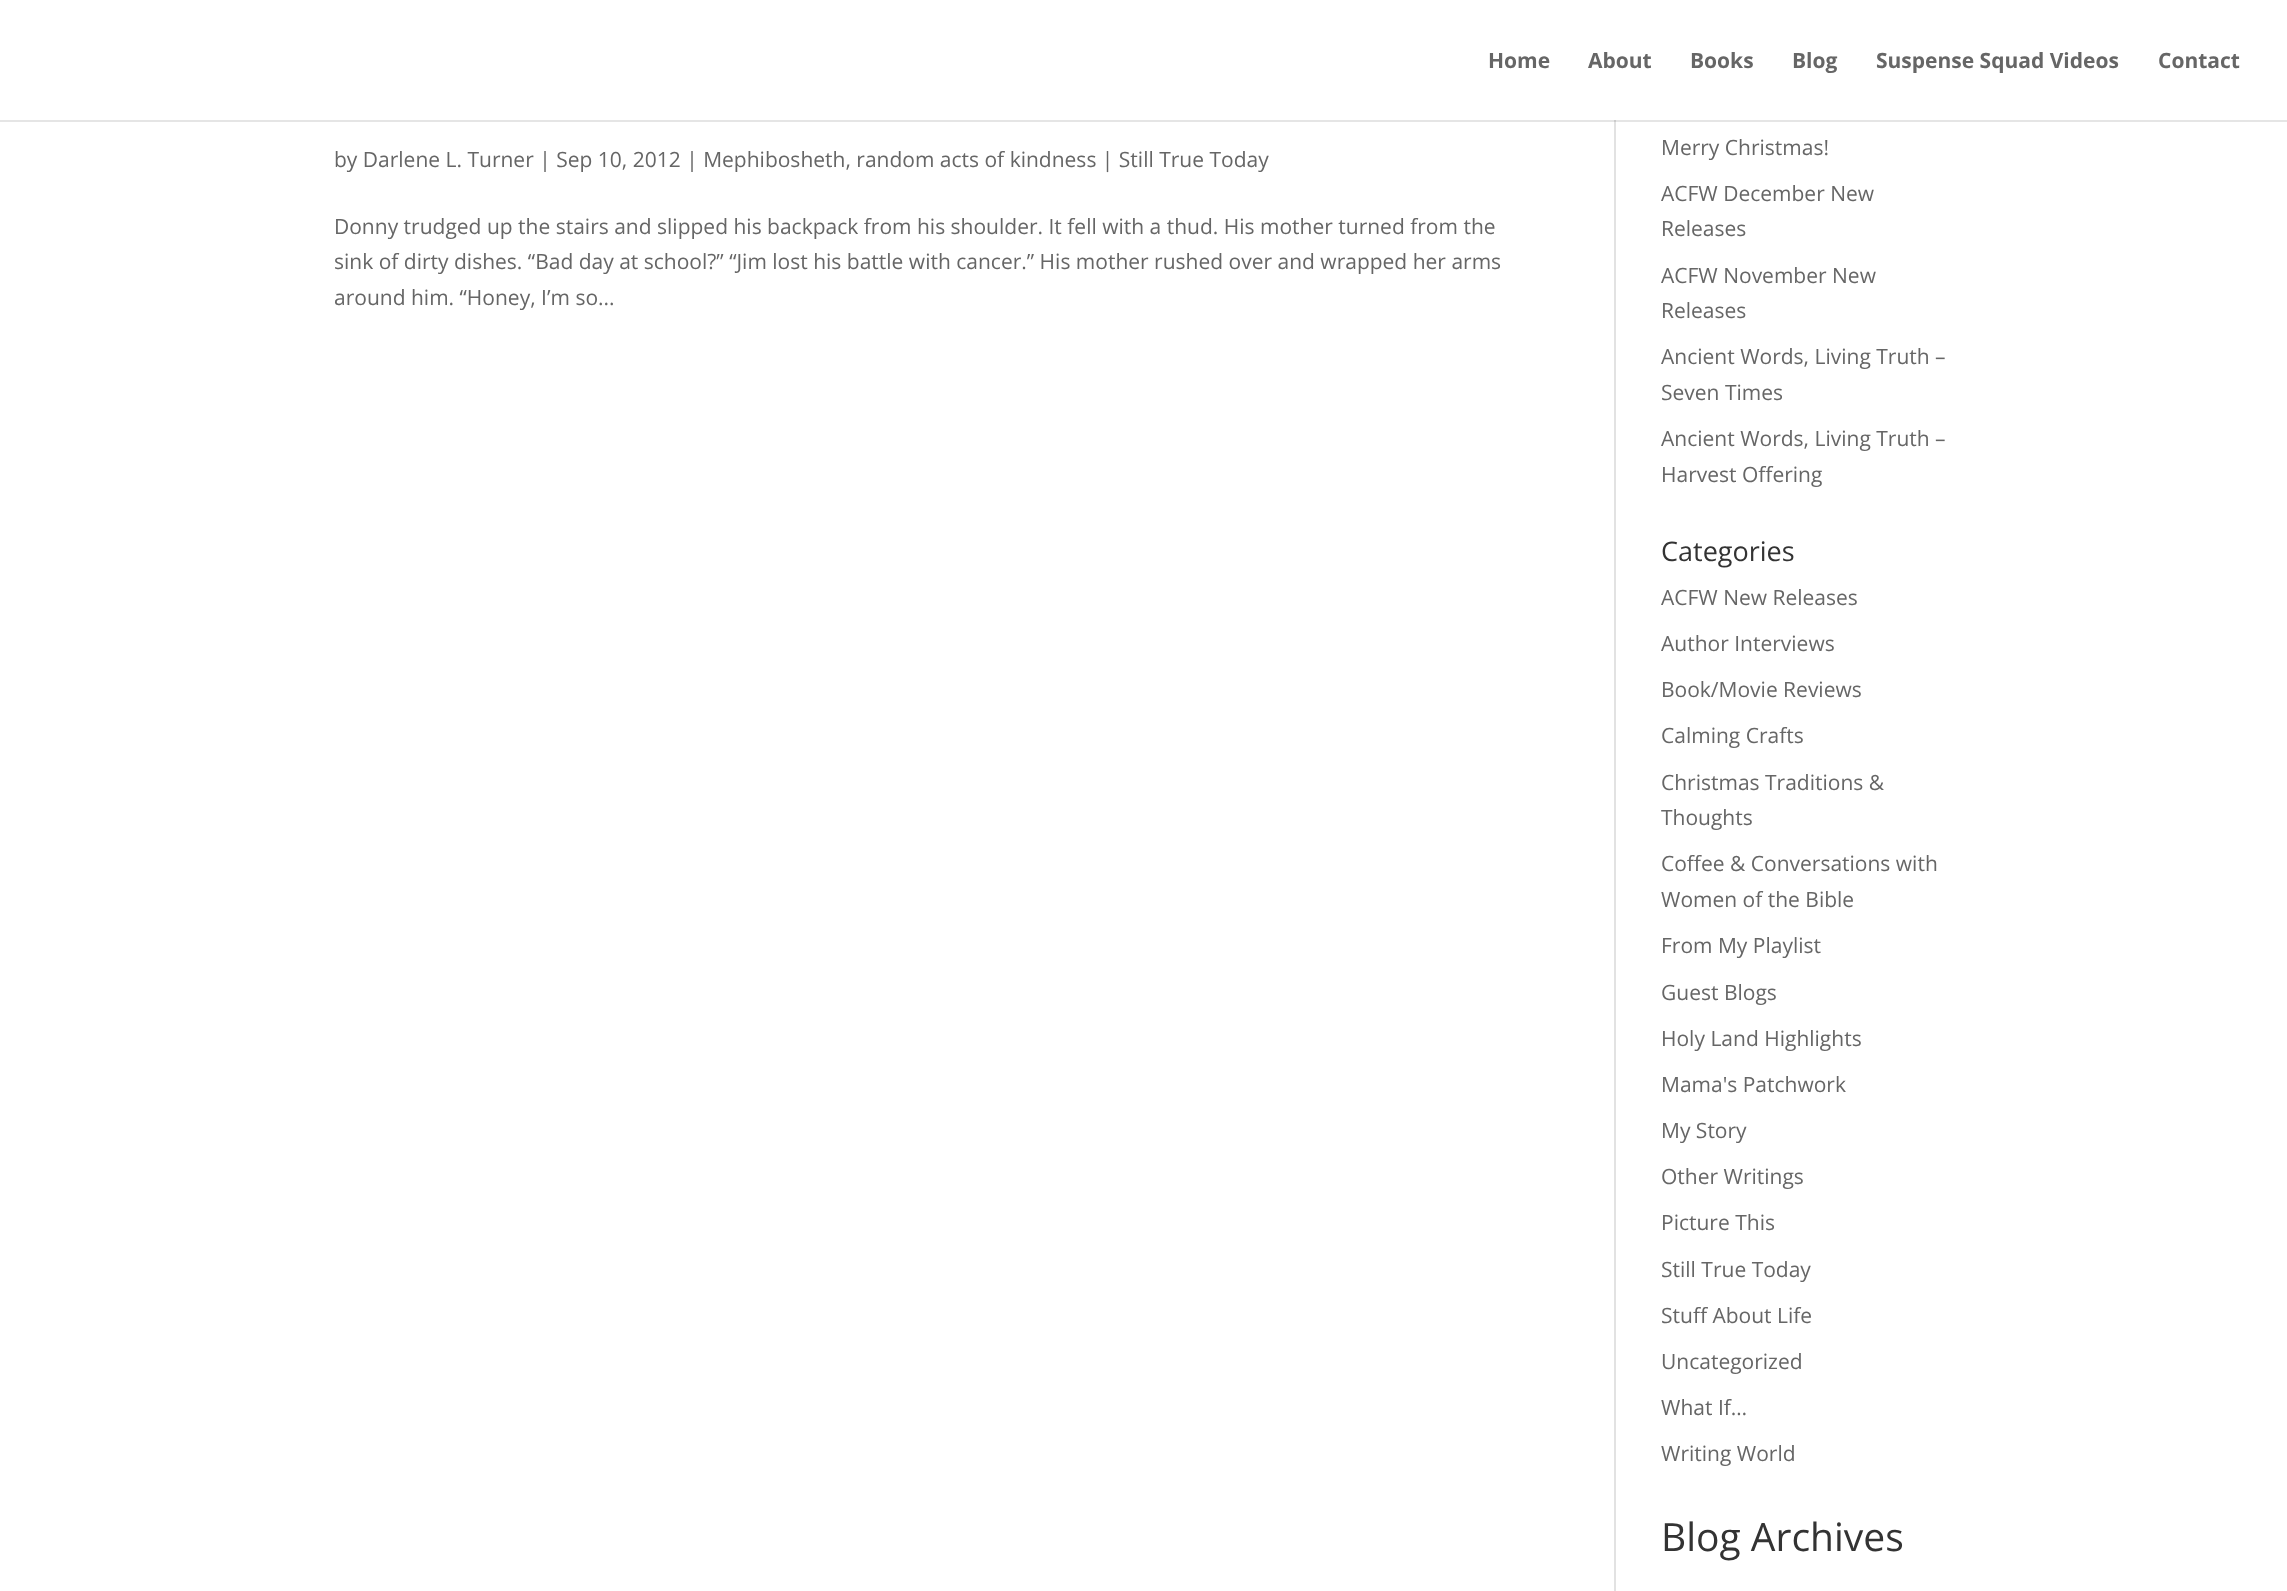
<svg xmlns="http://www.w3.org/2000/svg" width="2287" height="1591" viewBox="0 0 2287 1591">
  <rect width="100%" height="100%" fill="#fff"/>
  <path d="M1614 120h2v1471H1614z" fill="#e2e2e2"/>
  <path d="M0 120V122H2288V2V120Z" fill="#0000001a"/>
  <g font-family="Open Sans" font-size="21" font-weight="bold" fill="#666">
    <text x="1488" y="68">Home</text>
    <text x="1588" y="68">About</text>
    <text x="1690" y="68">Books</text>
    <text x="1792" y="68">Blog</text>
    <text x="1876" y="68">Suspense Squad Videos</text>
    <text x="2158" y="68">Contact</text>
  </g>
  <g font-family="Open Sans" font-size="21" fill="#666">
    <text x="334" y="167">by Darlene L. Turner | Sep 10, 2012 | Mephibosheth, random acts of kindness | Still True Today</text>
    <text x="334" y="234">Donny trudged up the stairs and slipped his backpack from his shoulder. It fell with a thud. His mother turned from the</text>
    <text x="334" y="269">sink of dirty dishes. “Bad day at school?” “Jim lost his battle with cancer.” His mother rushed over and wrapped her arms</text>
    <text x="334" y="305">around him. “Honey, I’m so...</text>
    <text x="1661" y="155">Merry Christmas!</text>
    <text x="1661" y="201">ACFW December New</text>
    <text x="1661" y="236">Releases</text>
    <text x="1661" y="283">ACFW November New</text>
    <text x="1661" y="318">Releases</text>
    <text x="1661" y="364">Ancient Words, Living Truth –</text>
    <text x="1661" y="400">Seven Times</text>
    <text x="1661" y="446">Ancient Words, Living Truth –</text>
    <text x="1661" y="482">Harvest Offering</text>
  </g>
  <text x="1661" y="561" font-family="Open Sans" font-size="27" fill="#333">Categories</text>
  <g font-family="Open Sans" font-size="21" fill="#666">
    <text x="1661" y="605">ACFW New Releases</text>
    <text x="1661" y="651">Author Interviews</text>
    <text x="1661" y="697">Book/Movie Reviews</text>
    <text x="1661" y="743">Calming Crafts</text>
    <text x="1661" y="790">Christmas Traditions &amp;</text>
    <text x="1661" y="825">Thoughts</text>
    <text x="1661" y="871">Coffee &amp; Conversations with</text>
    <text x="1661" y="907">Women of the Bible</text>
    <text x="1661" y="953">From My Playlist</text>
    <text x="1661" y="1000">Guest Blogs</text>
    <text x="1661" y="1046">Holy Land Highlights</text>
    <text x="1661" y="1092">Mama's Patchwork</text>
    <text x="1661" y="1138">My Story</text>
    <text x="1661" y="1184">Other Writings</text>
    <text x="1661" y="1230">Picture This</text>
    <text x="1661" y="1277">Still True Today</text>
    <text x="1661" y="1323">Stuff About Life</text>
    <text x="1661" y="1369">Uncategorized</text>
    <text x="1661" y="1415">What If…</text>
    <text x="1661" y="1461">Writing World</text>
  </g>
  <text x="1661" y="1551" font-family="Open Sans" font-size="39" fill="#333">Blog Archives</text>
</svg>
